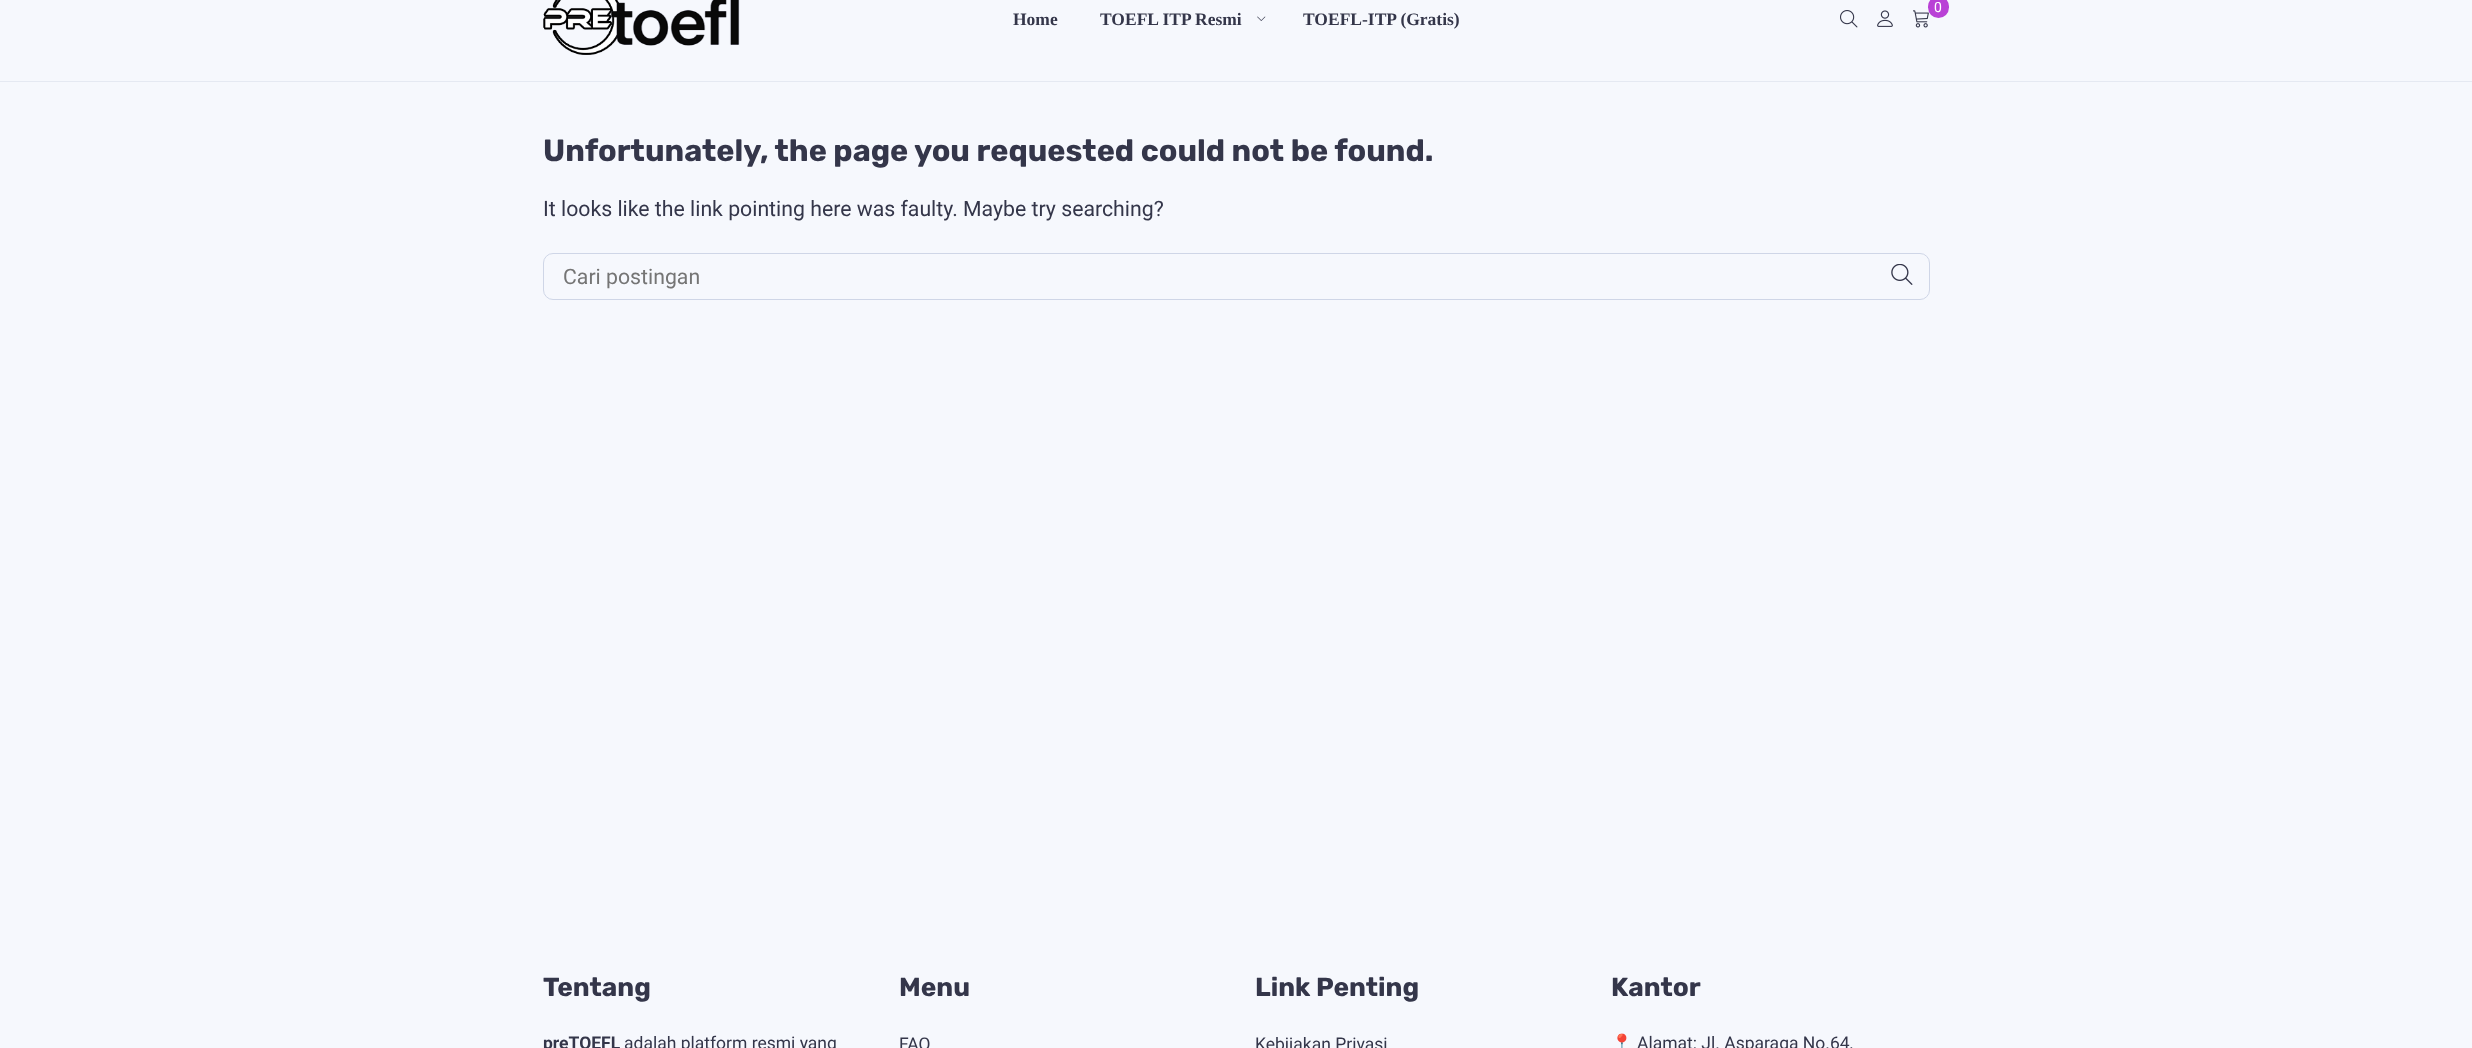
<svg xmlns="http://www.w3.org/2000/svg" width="2472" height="1048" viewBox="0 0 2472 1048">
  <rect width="100%" height="100%" fill="#f6f8fd"/>
  <path d="M0 81h2472v1H0z" fill="#e5e9f2"/>
  <image x="543" y="0" width="197" height="55" href="img/1.png"/>
  <image x="1913" y="10" width="16" height="18" href="img/2.png"/>
  <rect x="1928" y="-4" width="21" height="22" rx="10.5" fill="#b941d6"/>
  <image x="1840" y="10" width="18" height="18" href="img/3.png"/>
  <image x="1877" y="10" width="16" height="17" href="img/4.png"/>
  <image x="1257" y="16" width="9" height="5" href="img/5.png"/>
  <rect x="543.5" y="253.5" width="1386" height="46" rx="9.5" fill="none" stroke="#cfd6e7"/>
  <image x="1891" y="264" width="22" height="21" href="img/6.png"/>
  <text x="1934" y="12" font-family="Roboto" font-size="14" fill="#fff">0</text>
  <g font-family="Liberation Serif" font-size="17.5" font-weight="bold" fill="#34364a">
    <text x="1013" y="25">Home</text>
    <text x="1100" y="25">TOEFL ITP Resmi</text>
    <text x="1303" y="25">TOEFL-ITP (Gratis)</text>
  </g>
  <text x="543" y="161" font-family="Rubik" font-size="30.6" font-weight="bold" fill="#34364a">Unfortunately, the page you requested could not be found.</text>
  <text x="543" y="216" font-family="Roboto" font-size="21.25" fill="#34364a">It looks like the link pointing here was faulty. Maybe try searching?</text>
  <text x="563" y="284" font-family="Roboto" font-size="21.25" fill="#757575">Cari postingan</text>
  <text x="543" y="996" font-family="Rubik" font-size="26.25" font-weight="bold" fill="#34364a">Tentang</text>
  <text x="543" y="1049" font-family="Roboto" font-size="17.5" font-weight="bold" fill="#34364a">preTOEFL</text>
  <text x="624" y="1049" font-family="Roboto" font-size="17.5" fill="#34364a">adalah platform resmi yang</text>
  <text x="899" y="996" font-family="Rubik" font-size="26.25" font-weight="bold" fill="#34364a">Menu</text>
  <text x="899" y="1050" font-family="Roboto" font-size="17.5" fill="#34364a">FAQ</text>
  <text x="1255" y="996" font-family="Rubik" font-size="26.25" font-weight="bold" fill="#34364a">Link Penting</text>
  <text x="1255" y="1050" font-family="Roboto" font-size="17.5" fill="#34364a">Kebijakan Privasi</text>
  <text x="1611" y="996" font-family="Rubik" font-size="26.25" font-weight="bold" fill="#34364a">Kantor</text>
  <text x="1611" y="1049" font-family="Noto Color Emoji" font-size="17.5" fill="#34364a">📍</text>
  <text x="1637" y="1049" font-family="Roboto" font-size="17.5" fill="#34364a">Alamat: Jl. Asparaga No.64,</text>
</svg>
